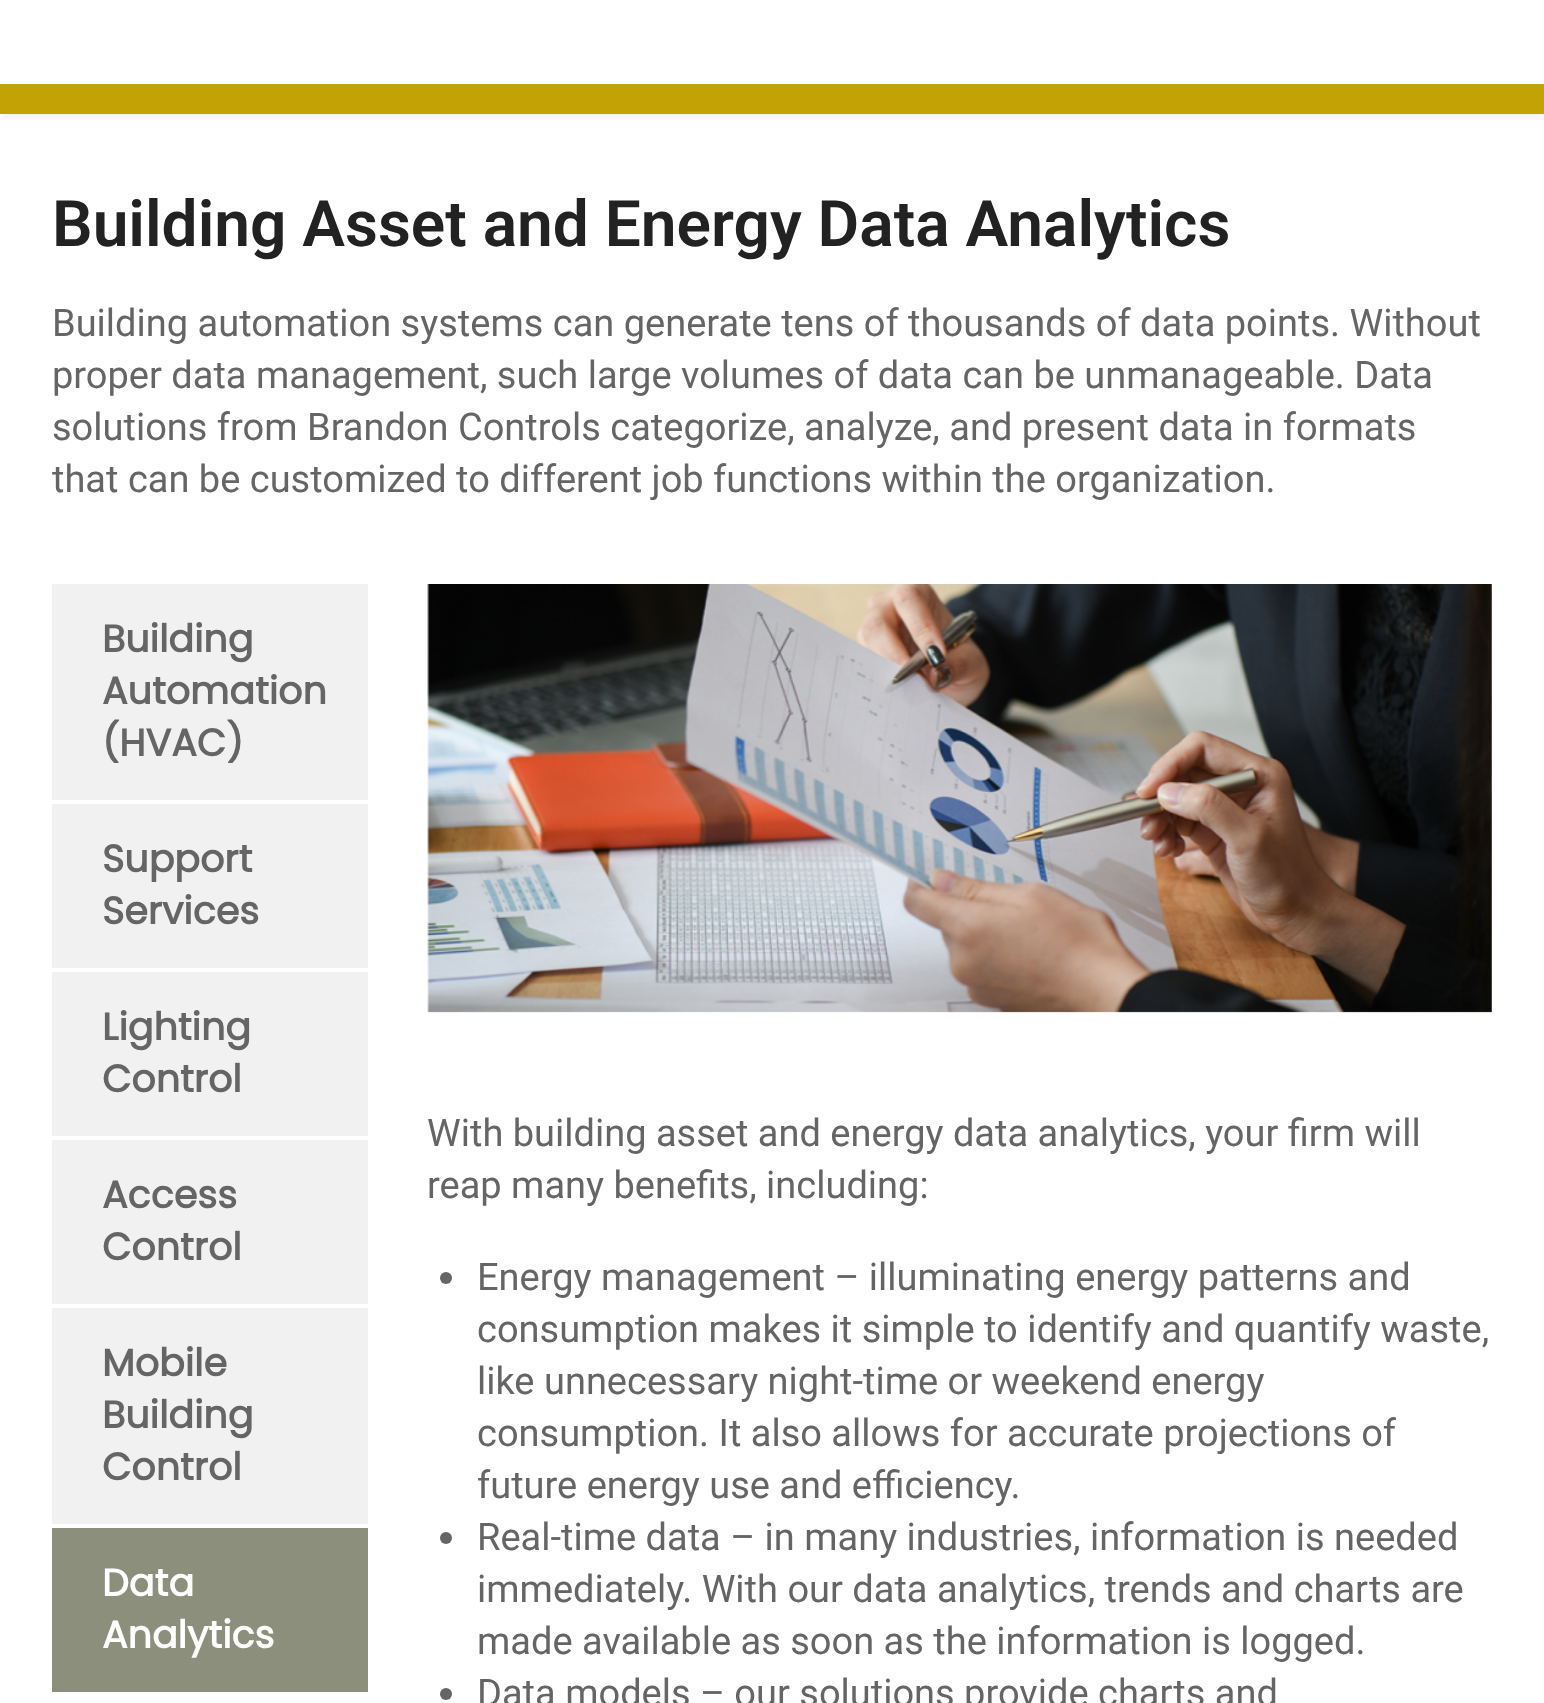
<svg xmlns="http://www.w3.org/2000/svg" width="1544" height="1703" viewBox="0 0 1544 1703">
  <defs>
    <clipPath id="clip1"><path d="M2 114h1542v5H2z"/></clipPath>
  </defs>
  <rect width="100%" height="100%" fill="#fff"/>
  <g clip-path="url(#clip1)">
    <path d="M2 -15h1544v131H2z" fill="#00000012" filter="blur(5px)"/>
  </g>
  <path d="M0 84h1544v30H0z" fill="#c2a204"/>
  <path d="M52 584h316v216H52z" fill="#f1f1f1"/>
  <path d="M52 804h316v164H52z" fill="#f1f1f1"/>
  <path d="M52 972h316v164H52z" fill="#f1f1f1"/>
  <path d="M52 1140h316v164H52z" fill="#f1f1f1"/>
  <path d="M52 1308h316v216H52z" fill="#f1f1f1"/>
  <path d="M52 1528h316v164H52z" fill="#8b8f7c"/>
  <image x="427" y="584" width="1065" height="429" href="img/1.png"/>
  <circle cx="446" cy="1278" r="6" fill="#656565"/>
  <circle cx="446" cy="1538" r="6" fill="#656565"/>
  <circle cx="446" cy="1694" r="6" fill="#656565"/>
  <text x="52" y="246" font-family="Roboto" font-size="64" font-weight="600" fill="#222">Building Asset and Energy Data Analytics</text>
  <g font-family="Roboto" font-size="38" fill="#656565">
    <text x="52" y="336">Building automation systems can generate tens of thousands of data points. Without</text>
    <text x="52" y="388">proper data management, such large volumes of data can be unmanageable. Data</text>
    <text x="52" y="440">solutions from Brandon Controls categorize, analyze, and present data in formats</text>
    <text x="52" y="492">that can be customized to different job functions within the organization.</text>
  </g>
  <g font-family="Poppins" font-size="38" font-weight="bold" fill="#656565">
    <text x="102" y="652">Building</text>
    <text x="102" y="704">Automation</text>
    <text x="102" y="756">(HVAC)</text>
    <text x="102" y="872">Support</text>
    <text x="102" y="924">Services</text>
    <text x="102" y="1040">Lighting</text>
    <text x="102" y="1092">Control</text>
    <text x="102" y="1208">Access</text>
    <text x="102" y="1260">Control</text>
    <text x="102" y="1376">Mobile</text>
    <text x="102" y="1428">Building</text>
    <text x="102" y="1480">Control</text>
  </g>
  <g font-family="Poppins" font-size="38" font-weight="bold" fill="#fff">
    <text x="102" y="1596">Data</text>
    <text x="102" y="1648">Analytics</text>
  </g>
  <g font-family="Roboto" font-size="38" fill="#656565">
    <text x="427" y="1146">With building asset and energy data analytics, your firm will</text>
    <text x="427" y="1198">reap many benefits, including:</text>
    <text x="477" y="1290">Energy management – illuminating energy patterns and</text>
    <text x="477" y="1342">consumption makes it simple to identify and quantify waste,</text>
    <text x="477" y="1394">like unnecessary night-time or weekend energy</text>
    <text x="477" y="1446">consumption. It also allows for accurate projections of</text>
    <text x="477" y="1498">future energy use and efficiency.</text>
    <text x="477" y="1550">Real-time data – in many industries, information is needed</text>
    <text x="477" y="1602">immediately. With our data analytics, trends and charts are</text>
    <text x="477" y="1654">made available as soon as the information is logged.</text>
    <text x="477" y="1706">Data models – our solutions provide charts and</text>
  </g>
</svg>
